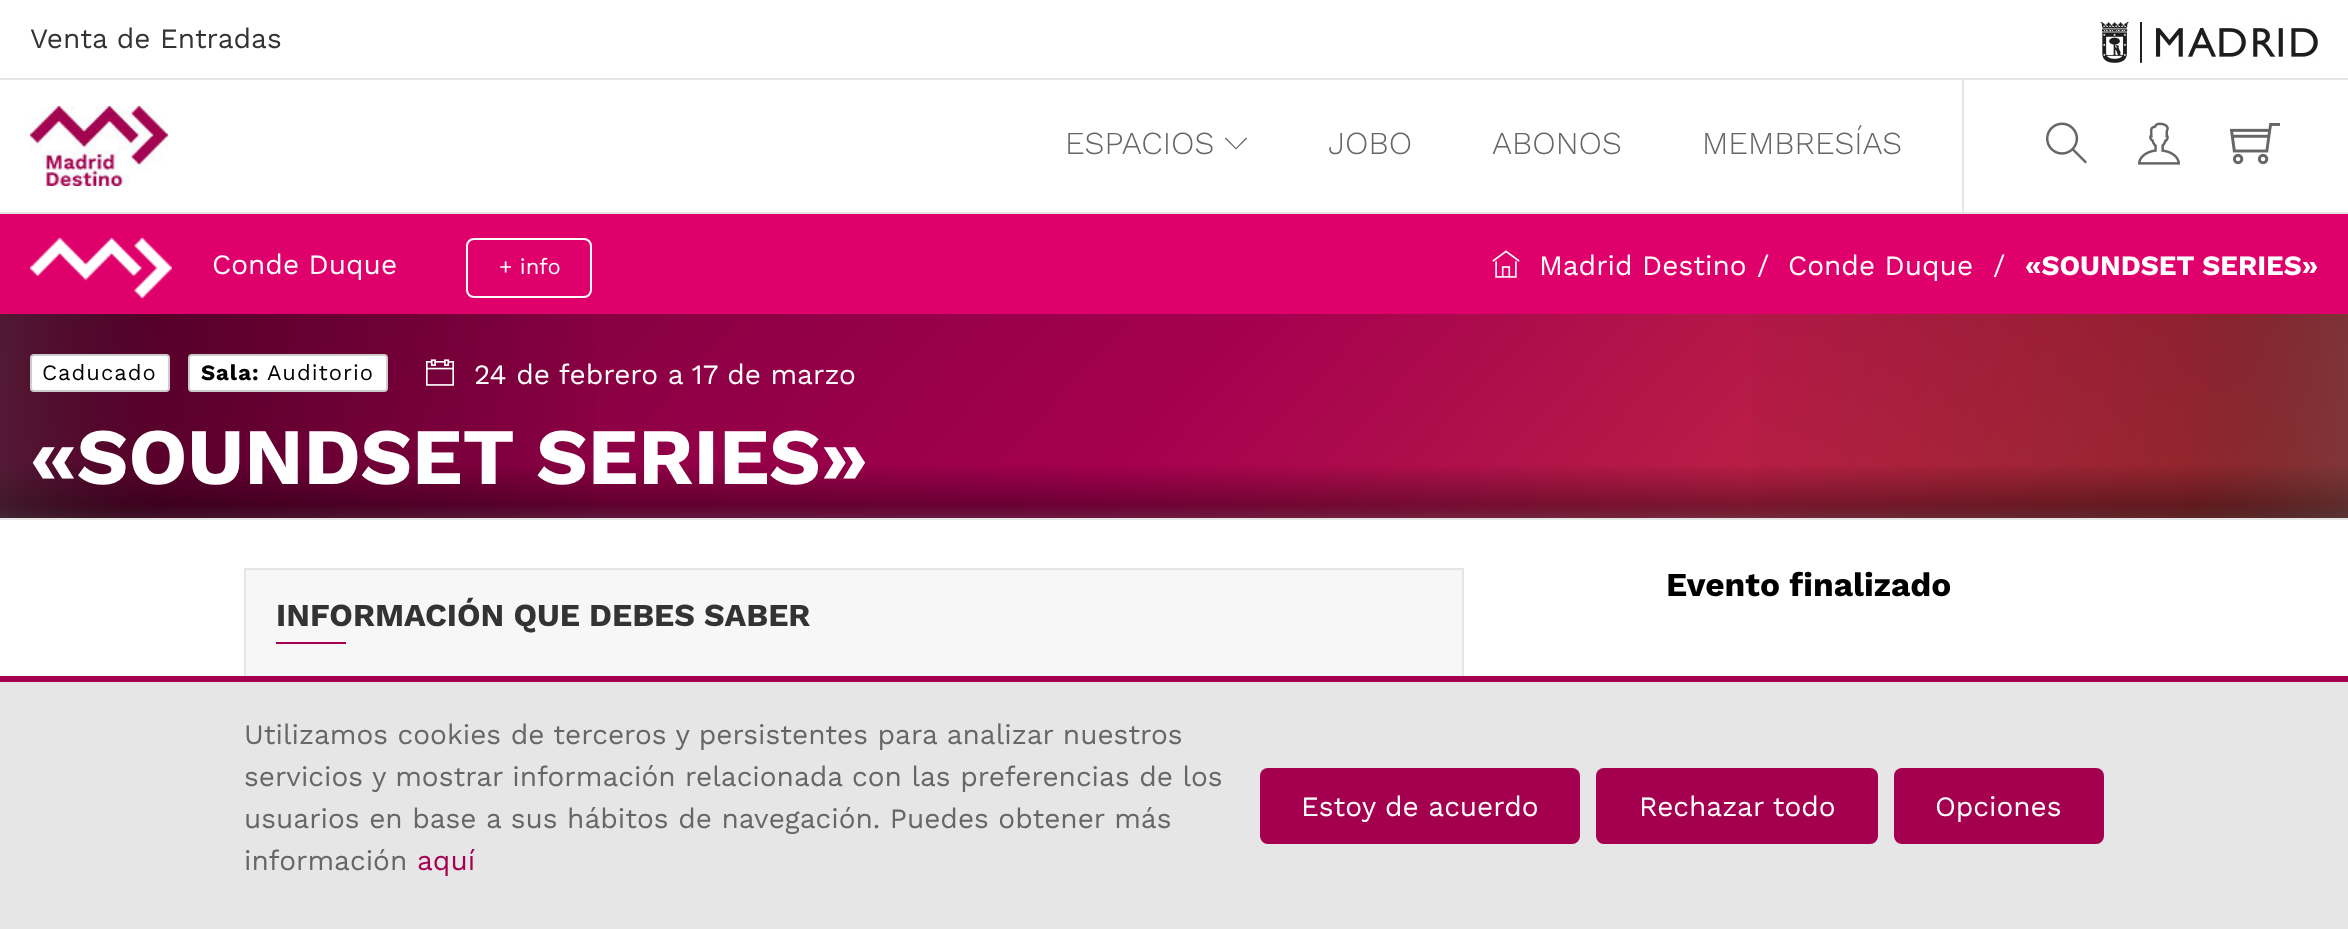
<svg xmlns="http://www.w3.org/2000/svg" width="2348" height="929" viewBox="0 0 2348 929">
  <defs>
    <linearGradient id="g1" gradientUnits="userSpaceOnUse" x1="-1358" y1="-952" x2="1629" y2="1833"><stop offset="0" stop-color="#000"/><stop offset="0.68" stop-color="#a50050"/><stop offset="1" stop-color="#de5433"/></linearGradient>
    <linearGradient id="g2" gradientUnits="userSpaceOnUse" x1="1174" y1="314" x2="1174" y2="518"><stop offset="0" stop-color="#000" stop-opacity="0"/><stop offset="0.73" stop-color="#000" stop-opacity="0"/><stop offset="0.93" stop-color="#000" stop-opacity="0.33"/><stop offset="1" stop-color="#333" stop-opacity="0.5"/></linearGradient>
    <linearGradient id="g3" gradientUnits="userSpaceOnUse" x1="2348" y1="416" x2="0" y2="416"><stop offset="0" stop-color="#000" stop-opacity="0"/><stop offset="0.73" stop-color="#000" stop-opacity="0"/><stop offset="0.93" stop-color="#000" stop-opacity="0.26"/><stop offset="1" stop-color="#333" stop-opacity="0.5"/></linearGradient>
    <linearGradient id="g4" gradientUnits="userSpaceOnUse" x1="0" y1="416" x2="2348" y2="416"><stop offset="0" stop-color="#000" stop-opacity="0"/><stop offset="0.73" stop-color="#000" stop-opacity="0"/><stop offset="0.93" stop-color="#000" stop-opacity="0.26"/><stop offset="1" stop-color="#333" stop-opacity="0.5"/></linearGradient>
  </defs>
  <rect width="100%" height="100%" fill="#fff"/>
  <path d="M0 212h2348v2H0z" fill="#e6e6e6"/>
  <path d="M0 78h2348v2H0z" fill="#e6e6e6"/>
  <image x="2100" y="22" width="218" height="41" href="img/1.png"/>
  <image x="30" y="106" width="138" height="80" href="img/2.png"/>
  <path d="M1247 138.5L1236 149.5L1225 138.5L1226 137.5L1236 148L1246 137.5Z" fill="#666"/>
  <path d="M1962 80h2v132H1962z" fill="#e6e6e6"/>
  <image x="2046" y="122" width="41" height="42" href="img/3.png"/>
  <image x="2138" y="122" width="42" height="43" href="img/4.png"/>
  <image x="2230" y="123" width="50" height="42" href="img/5.png"/>
  <path d="M0 214h2348v100H0z" fill="#e0006b"/>
  <image x="30" y="238" width="142" height="60" href="img/6.png"/>
  <rect x="467" y="239" width="124" height="58" rx="7" fill="none" stroke="#fff" stroke-width="2"/>
  <image x="1492" y="250" width="28" height="28" href="img/7.png"/>
  <path d="M0 314h2348v204H0z" fill="url(#g1)"/>
  <path d="M0 518h2348v2H0z" fill="#e6e6e6"/>
  <path d="M0 466h2348v52H0z" fill="url(#g2)"/>
  <path d="M0 314h595v204H0z" fill="url(#g3)"/>
  <path d="M1753 314h595v204H1753z" fill="url(#g4)"/>
  <rect x="31" y="355" width="138" height="36" rx="3" fill="#fff" stroke="#ccc" stroke-width="2"/>
  <rect x="189" y="355" width="198" height="36" rx="3" fill="#fff" stroke="#ccc" stroke-width="2"/>
  <image x="426" y="359" width="28" height="27" href="img/8.png"/>
  <path d="M245 569h1218v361H245z" fill="none" stroke="#e6e6e6" stroke-width="2"/>
  <path d="M246 570h1216v106H246z" fill="#f7f7f7"/>
  <path d="M276 642h70v2H276z" fill="#a50050"/>
  <path d="M0 682h2348v247H0z" fill="#e6e6e6"/>
  <path d="M0 676h2348v6H0z" fill="#a50050"/>
  <rect x="1260" y="768" width="320" height="76" rx="8" fill="#a50050"/>
  <rect x="1596" y="768" width="282" height="76" rx="8" fill="#a50050"/>
  <rect x="1894" y="768" width="210" height="76" rx="8" fill="#a50050"/>
  <text x="30" y="48" font-family="Work Sans" font-size="28" fill="#333">Venta de Entradas</text>
  <g font-family="Work Sans" font-size="32" font-weight="300" fill="#666">
    <text x="1065" y="154">ESPACIOS</text>
    <text x="1328" y="154">JOBO</text>
    <text x="1492" y="154">ABONOS</text>
    <text x="1702" y="154">MEMBRESÍAS</text>
  </g>
  <text x="212" y="274" font-family="Work Sans" font-size="28" fill="#fff">Conde Duque</text>
  <text x="499" y="274" font-family="Work Sans" font-size="22" fill="#fff">+ info</text>
  <g font-family="Work Sans" font-size="28" fill="#fff">
    <text x="1539" y="275">Madrid Destino</text>
    <text x="1757" y="275">/</text>
    <text x="1788" y="275">Conde Duque</text>
    <text x="1993" y="275">/</text>
  </g>
  <text x="2025" y="275" font-family="Work Sans" font-size="28" font-weight="bold" fill="#fff">«SOUNDSET SERIES»</text>
  <text x="42" y="380" font-family="Work Sans" font-size="22" letter-spacing="1" fill="#000">Caducado</text>
  <text x="201" y="380" font-family="Work Sans" font-size="22" font-weight="bold" letter-spacing="1" fill="#000">Sala:</text>
  <text x="267" y="380" font-family="Work Sans" font-size="22" letter-spacing="1" fill="#000">Auditorio</text>
  <text x="474" y="384" font-family="Work Sans" font-size="28" fill="#fff">24 de febrero a 17 de marzo</text>
  <text x="30" y="484" font-family="Work Sans" font-size="80" font-weight="bold" fill="#fff">«SOUNDSET SERIES»</text>
  <text x="1666" y="596" font-family="Work Sans" font-size="33.5" font-weight="bold" fill="#000">Evento finalizado</text>
  <text x="276" y="626" font-family="Work Sans" font-size="32" font-weight="bold" fill="#333">INFORMACIÓN QUE DEBES SABER</text>
  <g font-family="Work Sans" font-size="28" fill="#666">
    <text x="244" y="744">Utilizamos cookies de terceros y persistentes para analizar nuestros</text>
    <text x="244" y="786">servicios y mostrar información relacionada con las preferencias de los</text>
    <text x="244" y="828">usuarios en base a sus hábitos de navegación. Puedes obtener más</text>
    <text x="244" y="870">información</text>
  </g>
  <text x="417" y="870" font-family="Work Sans" font-size="28" fill="#a50050">aquí</text>
  <g font-family="Work Sans" font-size="28" fill="#fff">
    <text x="1301" y="816">Estoy de acuerdo</text>
    <text x="1639" y="816">Rechazar todo</text>
    <text x="1935" y="816">Opciones</text>
  </g>
</svg>
